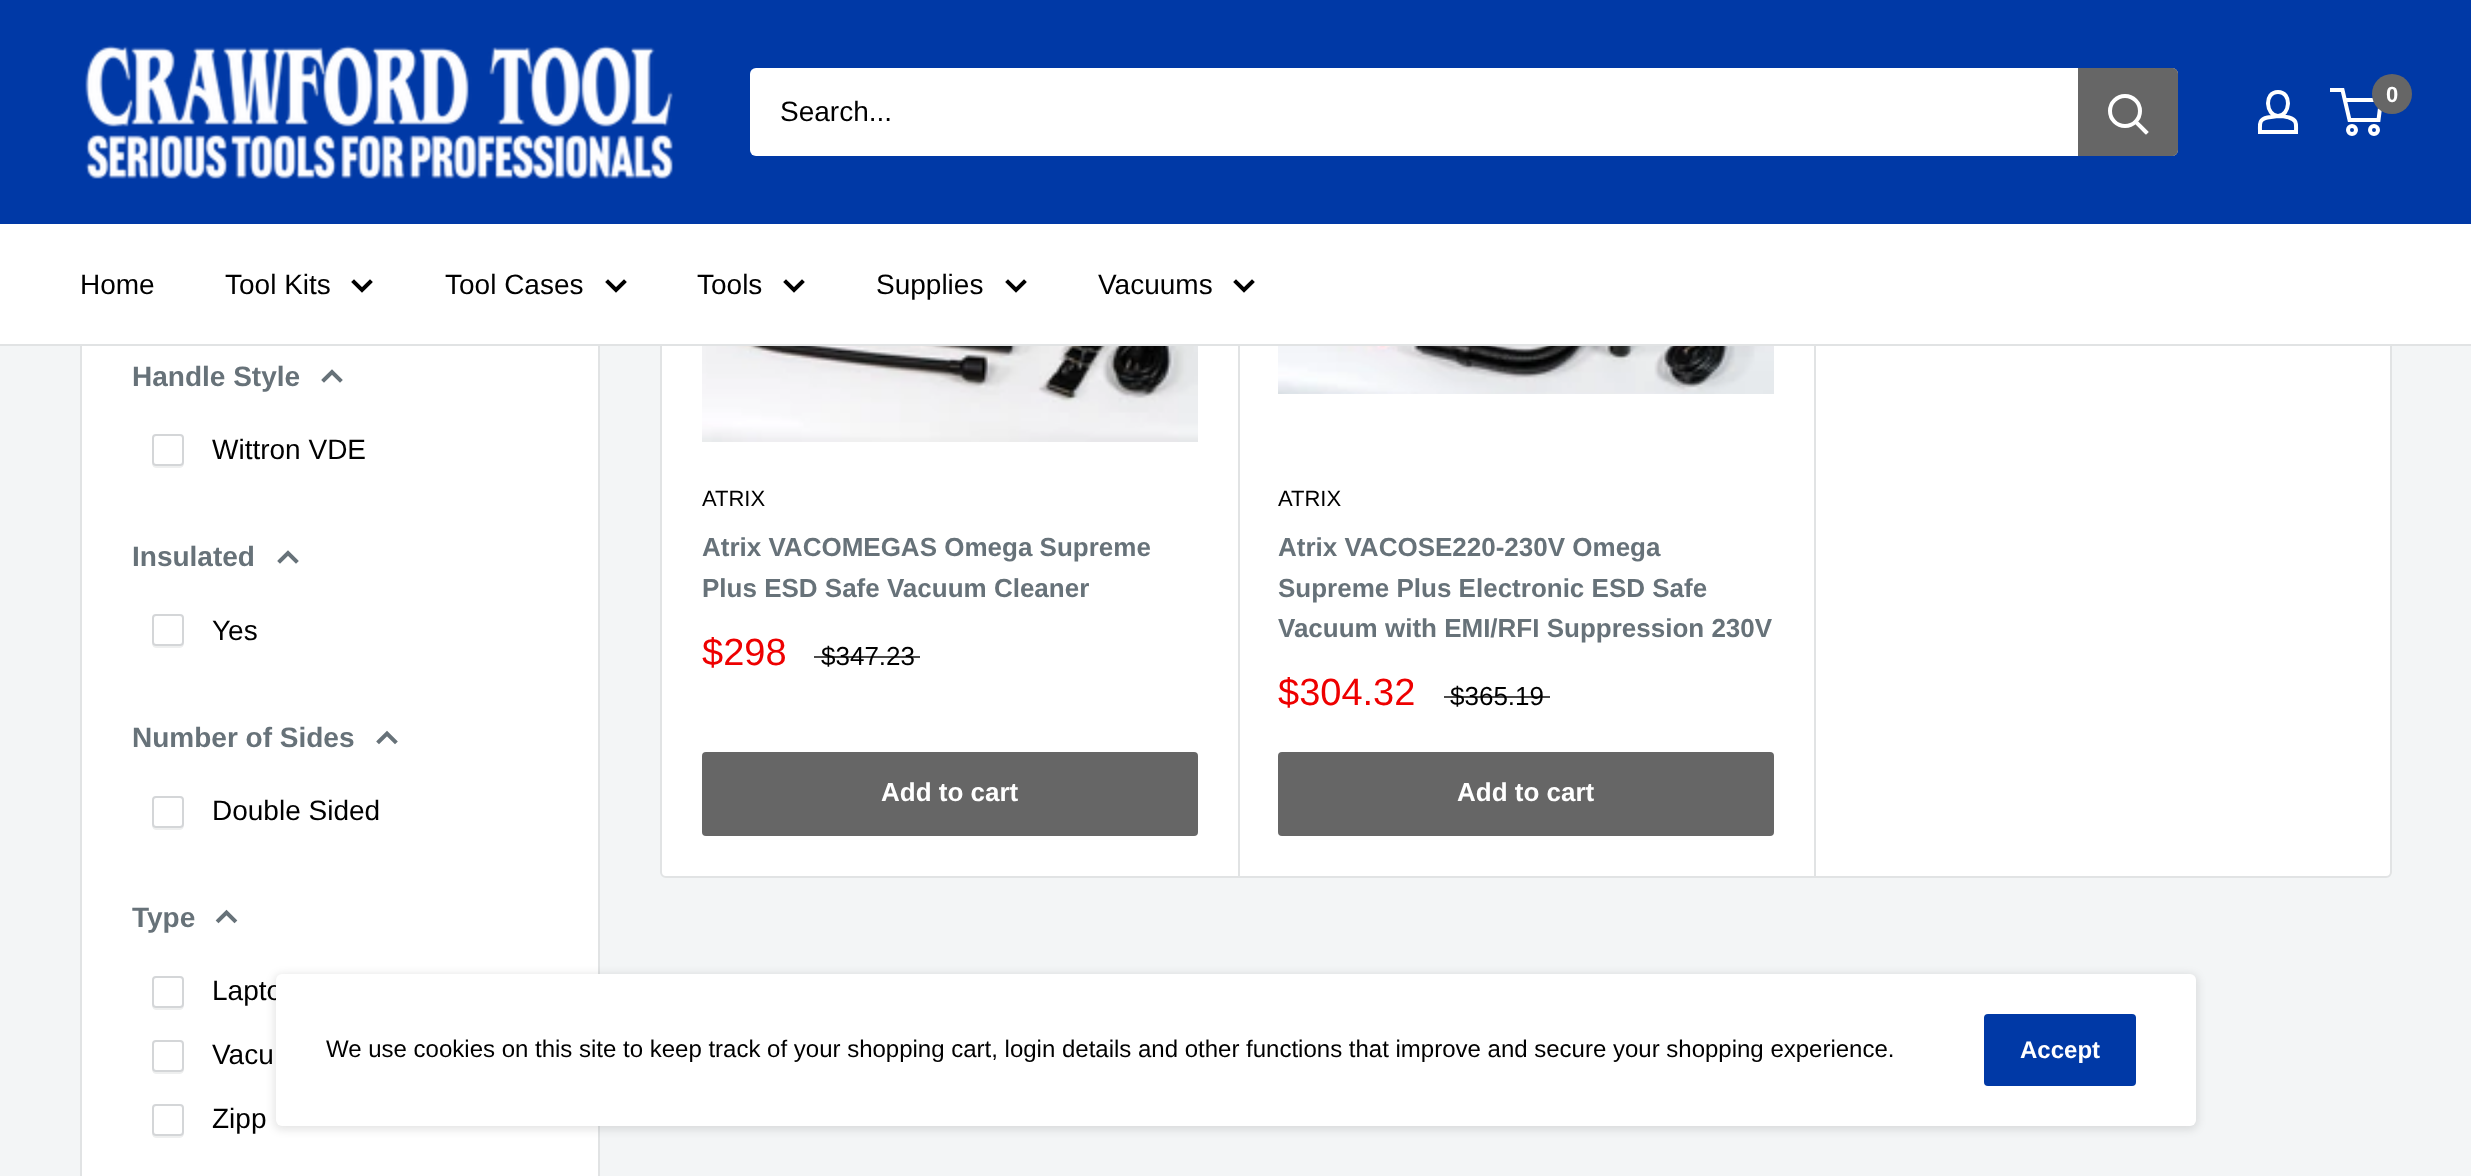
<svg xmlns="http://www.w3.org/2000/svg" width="2471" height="1176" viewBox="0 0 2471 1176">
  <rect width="100%" height="100%" fill="#f3f5f6"/>
  <path d="M82 346h516v830H82z" fill="#fff"/>
  <path d="M81 -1h518v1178H81z" fill="none" stroke="#e1e3e4" stroke-width="2"/>
  <rect x="661" y="-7" width="1730" height="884" rx="5" fill="#fff" stroke="#e1e3e4" stroke-width="2"/>
  <path d="M0 0h2471v224H0z" fill="#0039a6"/>
  <image x="85" y="45" width="588" height="134" href="img/1.png"/>
  <path d="M2278 116C2282 116 2285.5 116.5 2289 117.5C2297.5 120 2296 124.5 2296 132H2260C2260 124 2258.5 119.5 2267.5 117.5ZM2278 116C2266 116 2263.5 92 2278 92C2292.5 92 2290 116 2278 116Z" fill="none" stroke="#fff" stroke-width="4"/>
  <circle cx="2352" cy="130" r="4" fill="none" stroke="#fff" stroke-width="4"/>
  <circle cx="2374" cy="130" r="4" fill="none" stroke="#fff" stroke-width="4"/>
  <path d="M2344.5 100H2381L2378.5 120H2349.5L2342.5 90H2330" fill="none" stroke="#fff" stroke-width="4"/>
  <circle cx="2392" cy="94" r="20" fill="#666"/>
  <rect x="750" y="68" width="1428" height="88" rx="6" fill="#fff"/>
  <path d="M2078 68H2172C2175.5 68 2178 70.5 2178 74V150C2178 153.5 2175.5 156 2172 156H2078Z" fill="#666"/>
  <path d="M2146 132L2136 122" fill="none" stroke="#fff" stroke-width="4" stroke-linecap="square"/>
  <circle cx="2125" cy="111" r="15" fill="none" stroke="#fff" stroke-width="4"/>
  <path d="M0 224h2471v120H0z" fill="#fff"/>
  <path d="M0 344h2471v2H0z" fill="#e1e3e4"/>
  <path d="M370 282L362 290L354 282" fill="none" stroke="#000" stroke-width="4" stroke-linecap="square"/>
  <path d="M624 282L616 290L608 282" fill="none" stroke="#000" stroke-width="4" stroke-linecap="square"/>
  <path d="M802 282L794 290L786 282" fill="none" stroke="#000" stroke-width="4" stroke-linecap="square"/>
  <path d="M1024 282L1016 290L1008 282" fill="none" stroke="#000" stroke-width="4" stroke-linecap="square"/>
  <path d="M1252 282L1244 290L1236 282" fill="none" stroke="#000" stroke-width="4" stroke-linecap="square"/>
  <path d="M324 380L332 372L340 380" fill="none" stroke="#677279" stroke-width="4" stroke-linecap="square"/>
  <path d="M152 462C152 468 154.5 468 160 468H176C181.5 468 184 468 184 462C184 464 182 466 180 466H156C154 466 152 464 152 462Z" fill="#eeefef"/>
  <rect x="153" y="435" width="30" height="30" rx="3" fill="#fff" stroke="#d4d6d8" stroke-width="2"/>
  <path d="M280 561L288 553L296 561" fill="none" stroke="#677279" stroke-width="4" stroke-linecap="square"/>
  <path d="M152 642C152 648 154.5 648 160 648H176C181.5 648 184 648 184 642C184 644 182 646 180 646H156C154 646 152 644 152 642Z" fill="#eeefef"/>
  <rect x="153" y="615" width="30" height="30" rx="3" fill="#fff" stroke="#d4d6d8" stroke-width="2"/>
  <path d="M379 741.5L387 733.5L395 741.5" fill="none" stroke="#677279" stroke-width="4" stroke-linecap="square"/>
  <path d="M152 824C152 830 154.5 830 160 830H176C181.5 830 184 830 184 824C184 826 182 828 180 828H156C154 828 152 826 152 824Z" fill="#eeefef"/>
  <rect x="153" y="797" width="30" height="30" rx="3" fill="#fff" stroke="#d4d6d8" stroke-width="2"/>
  <path d="M218.5 920.5L226.5 912.5L234.5 920.5" fill="none" stroke="#677279" stroke-width="4" stroke-linecap="square"/>
  <path d="M152 1004C152 1010 154.5 1010 160 1010H176C181.5 1010 184 1010 184 1004C184 1006 182 1008 180 1008H156C154 1008 152 1006 152 1004Z" fill="#eeefef"/>
  <rect x="153" y="977" width="30" height="30" rx="3" fill="#fff" stroke="#d4d6d8" stroke-width="2"/>
  <path d="M152 1068C152 1074 154.5 1074 160 1074H176C181.5 1074 184 1074 184 1068C184 1070 182 1072 180 1072H156C154 1072 152 1070 152 1068Z" fill="#eeefef"/>
  <rect x="153" y="1041" width="30" height="30" rx="3" fill="#fff" stroke="#d4d6d8" stroke-width="2"/>
  <path d="M152 1132C152 1138 154.5 1138 160 1138H176C181.5 1138 184 1138 184 1132C184 1134 182 1136 180 1136H156C154 1136 152 1134 152 1132Z" fill="#eeefef"/>
  <rect x="153" y="1105" width="30" height="30" rx="3" fill="#fff" stroke="#d4d6d8" stroke-width="2"/>
  <image x="702" y="346" width="496" height="96" href="img/2.png"/>
  <path d="M1238 346h2v530H1238z" fill="#e1e3e4"/>
  <rect x="702" y="752" width="496" height="84" rx="4" fill="#666"/>
  <image x="1278" y="346" width="496" height="48" href="img/3.png"/>
  <path d="M1814 346h2v530H1814z" fill="#e1e3e4"/>
  <rect x="1278" y="752" width="496" height="84" rx="4" fill="#666"/>
  <rect x="274" y="974" width="1924" height="156" rx="8" fill="#0000001a" filter="blur(4px)"/>
  <text x="2386" y="102" font-family="Liberation Sans" font-size="22" font-weight="bold" fill="#fff">0</text>
  <g font-family="Liberation Sans" font-size="28" fill="#000">
    <text x="780" y="121">Search...</text>
    <text x="80" y="294">Home</text>
    <text x="225" y="294">Tool Kits</text>
    <text x="445" y="294">Tool Cases</text>
    <text x="697" y="294">Tools</text>
    <text x="876" y="294">Supplies</text>
    <text x="1098" y="294">Vacuums</text>
  </g>
  <text x="132" y="386" font-family="Liberation Sans" font-size="28" font-weight="bold" fill="#677279">Handle Style</text>
  <text x="212" y="459" font-family="Liberation Sans" font-size="28" fill="#000">Wittron VDE</text>
  <text x="132" y="566" font-family="Liberation Sans" font-size="28" font-weight="bold" fill="#677279">Insulated</text>
  <text x="212" y="640" font-family="Liberation Sans" font-size="28" fill="#000">Yes</text>
  <text x="132" y="747" font-family="Liberation Sans" font-size="28" font-weight="bold" fill="#677279">Number of Sides</text>
  <text x="212" y="820" font-family="Liberation Sans" font-size="28" fill="#000">Double Sided</text>
  <text x="132" y="927" font-family="Liberation Sans" font-size="28" font-weight="bold" fill="#677279">Type</text>
  <g font-family="Liberation Sans" font-size="28" fill="#000">
    <text x="212" y="1000">Lapto</text>
    <text x="212" y="1064">Vacu</text>
    <text x="212" y="1128">Zipp</text>
  </g>
  <text x="702" y="506" font-family="Liberation Sans" font-size="22" fill="#000">ATRIX</text>
  <g font-family="Liberation Sans" font-size="26" font-weight="bold" fill="#677279">
    <text x="702" y="556">Atrix VACOMEGAS Omega Supreme</text>
    <text x="702" y="597">Plus ESD Safe Vacuum Cleaner</text>
  </g>
  <text x="702" y="665" font-family="Liberation Sans" font-size="38" fill="#e00">$298</text>
  <text x="821" y="665" font-family="Liberation Sans" font-size="26" fill="#000">$347.23</text>
  <path d="M814 656h106v2H814z" fill="#000000b3"/>
  <text x="881" y="801" font-family="Liberation Sans" font-size="26" font-weight="bold" fill="#fff">Add to cart</text>
  <text x="1278" y="506" font-family="Liberation Sans" font-size="22" fill="#000">ATRIX</text>
  <g font-family="Liberation Sans" font-size="26" font-weight="bold" fill="#677279">
    <text x="1278" y="556">Atrix VACOSE220-230V Omega</text>
    <text x="1278" y="597">Supreme Plus Electronic ESD Safe</text>
    <text x="1278" y="637">Vacuum with EMI/RFI Suppression 230V</text>
  </g>
  <text x="1278" y="705" font-family="Liberation Sans" font-size="38" fill="#e00">$304.32</text>
  <text x="1450" y="705" font-family="Liberation Sans" font-size="26" fill="#000">$365.19</text>
  <path d="M1444 696h106v2H1444z" fill="#000000b3"/>
  <text x="1457" y="801" font-family="Liberation Sans" font-size="26" font-weight="bold" fill="#fff">Add to cart</text>
  <rect x="276" y="974" width="1920" height="152" rx="6" fill="#fff"/>
  <text x="326" y="1057" font-family="Liberation Sans" font-size="24" fill="#000">We use cookies on this site to keep track of your shopping cart, login details and other functions that improve and secure your shopping experience.</text>
  <rect x="1984" y="1014" width="152" height="72" rx="4" fill="#0039a6"/>
  <text x="2020" y="1058" font-family="Liberation Sans" font-size="24" font-weight="bold" fill="#fff">Accept</text>
</svg>
